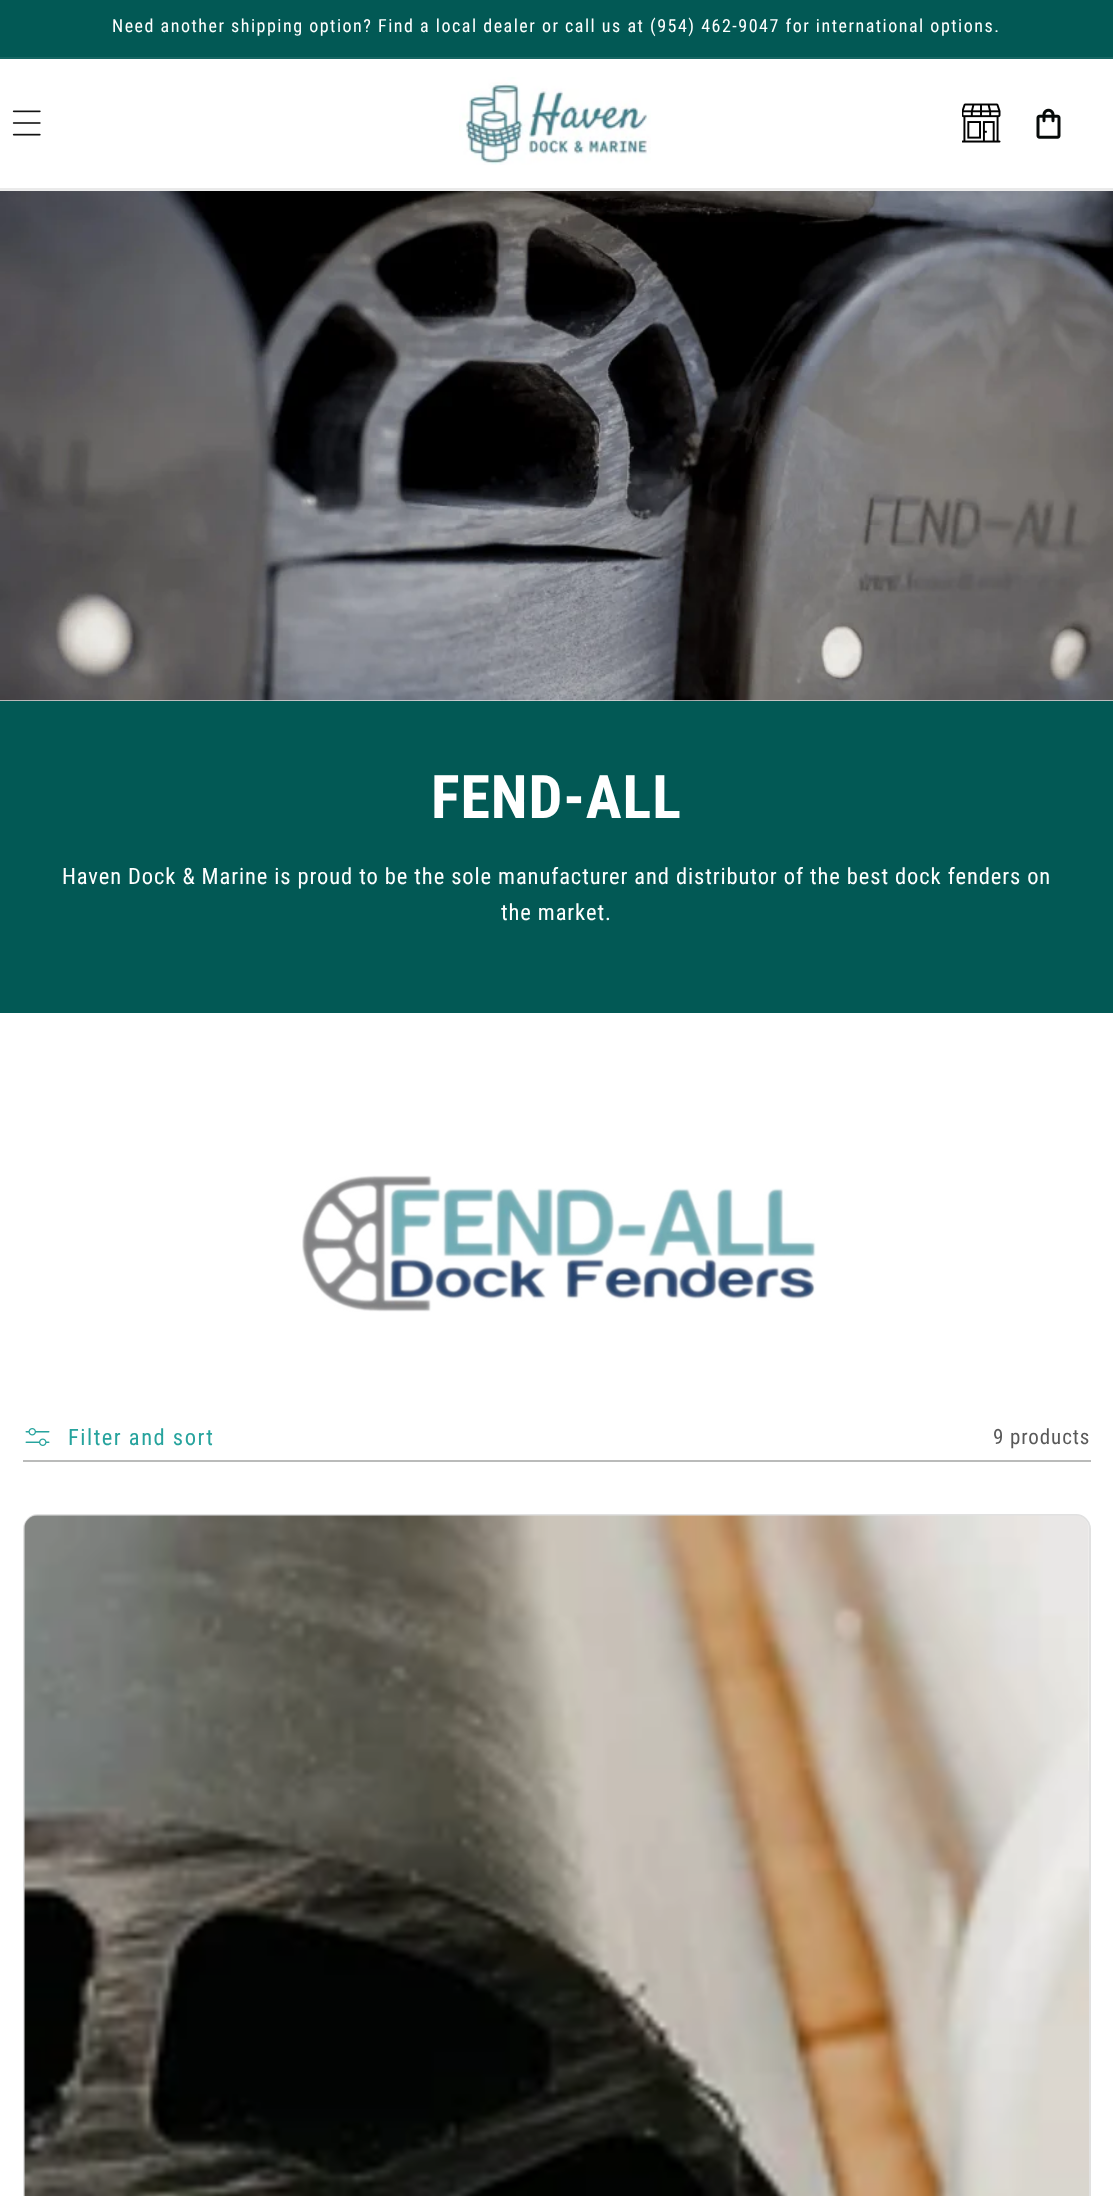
<svg xmlns="http://www.w3.org/2000/svg" width="1113" height="2196" viewBox="0 0 1113 2196">
  <rect width="100%" height="100%" fill="#fff"/>
  <path d="M0 0h1113v57H0z" fill="#025955"/>
  <path d="M0 57h1113v2H0z" fill="#166663"/>
  <path d="M0 190h1113v1H0z" fill="#ececec"/>
  <path d="M0 188h1113v2H0z" fill="#eaeaea"/>
  <image x="12" y="110" width="29" height="26" href="img/1.png"/>
  <image x="459" y="77" width="192" height="88" href="img/2.png"/>
  <image x="962" y="103" width="39" height="40" href="img/3.png"/>
  <image x="1036" y="108" width="25" height="31" href="img/4.png"/>
  <path d="M0 700h1113v1H0z" fill="#e1e1e1"/>
  <image x="0" y="191" width="1113" height="510" href="img/5.png"/>
  <path d="M0 701h1113v312H0z" fill="#025955"/>
  <image x="302" y="1175" width="514" height="137" href="img/6.png"/>
  <path d="M23 1460h1068v2H23z" fill="#babbba"/>
  <image x="25" y="1428" width="25" height="18" href="img/7.png"/>
  <rect x="23" y="1514" width="1068" height="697" rx="15" fill="#f9f9f9"/>
  <rect x="24" y="1515" width="1066" height="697" rx="14" fill="none" stroke="#1212121a" stroke-width="2"/>
  <image x="24" y="1515" width="1065" height="681" href="img/8.png"/>
  <text x="112" y="32" font-family="Roboto Condensed" font-size="18" letter-spacing="1.5" fill="#fff">Need another shipping option? Find a local dealer or call us at (954) 462-9047 for international options.</text>
  <text x="431" y="818" font-family="Roboto Condensed" font-size="60" font-weight="bold" letter-spacing="0.9" fill="#fff">FEND-ALL</text>
  <g font-family="Roboto Condensed" font-size="22.5" letter-spacing="0.9" fill="#fff">
    <text x="62" y="884">Haven Dock &amp; Marine is proud to be the sole manufacturer and distributor of the best dock fenders on</text>
    <text x="501" y="920">the market.</text>
  </g>
  <text x="68" y="1445" font-family="Roboto Condensed" font-size="22.5" letter-spacing="1.5" fill="#26a39d">Filter and sort</text>
  <text x="993" y="1444" font-family="Roboto Condensed" font-size="21" letter-spacing="0.9" fill="#595959">9 products</text>
</svg>
